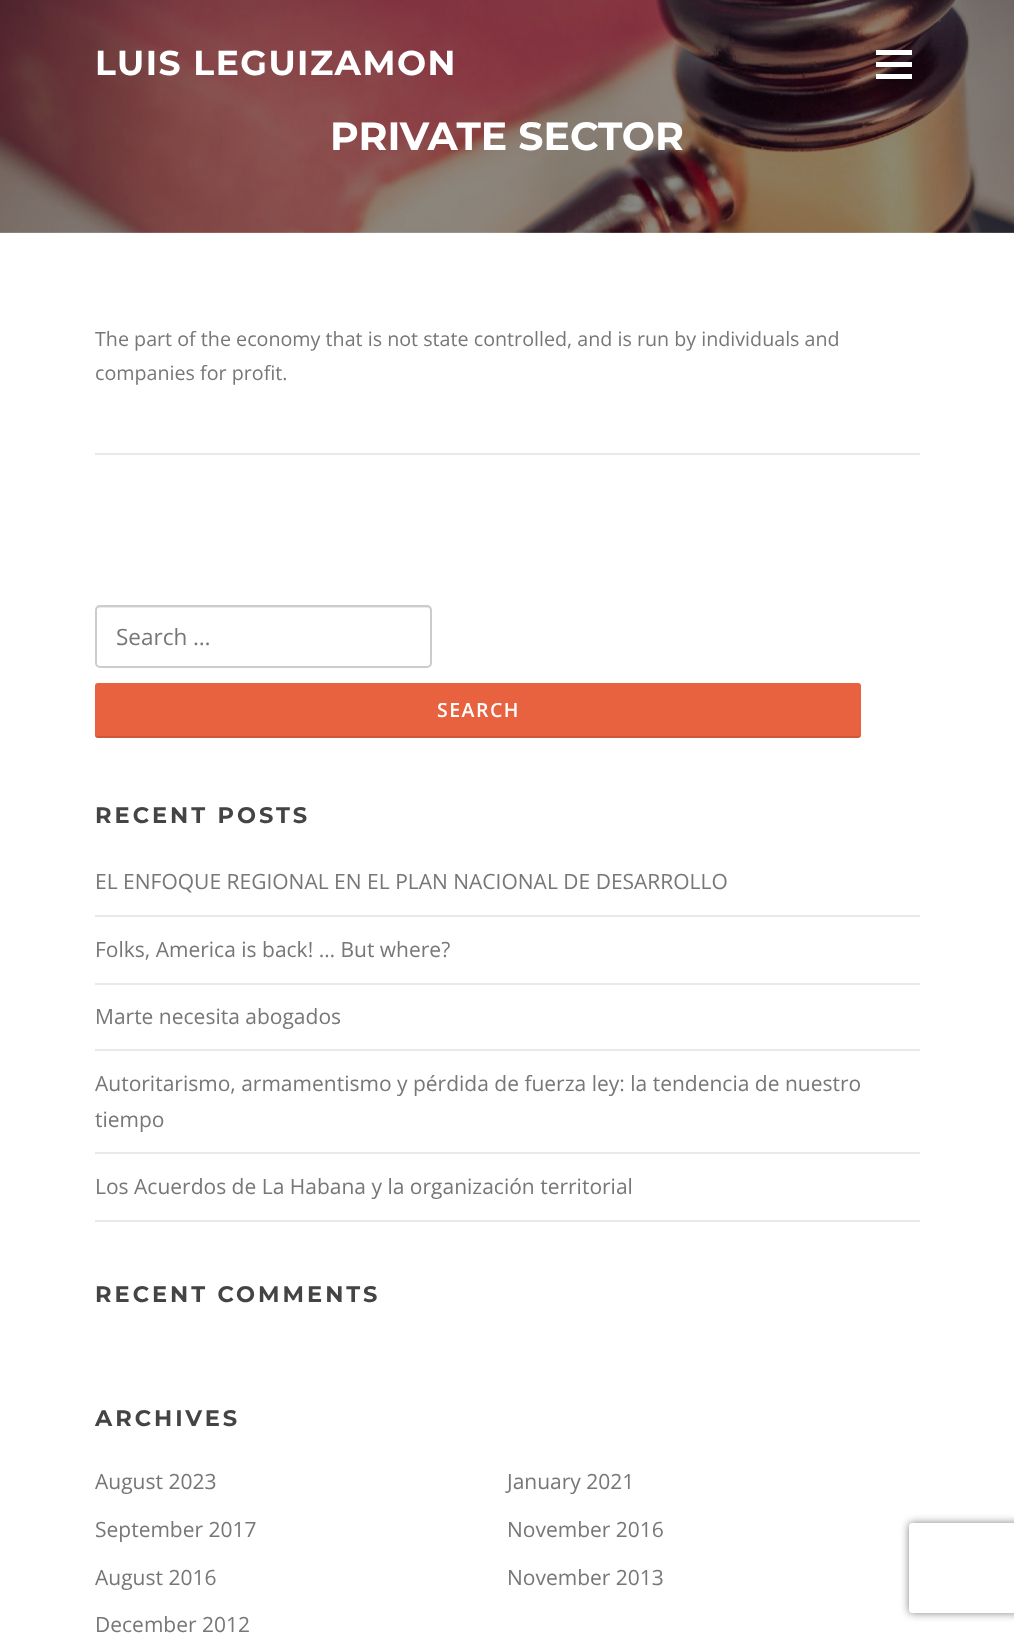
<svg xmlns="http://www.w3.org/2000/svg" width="1014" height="1633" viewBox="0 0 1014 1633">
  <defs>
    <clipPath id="clip1"><path d="M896 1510H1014V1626H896ZM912 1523H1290C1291.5 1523 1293 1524.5 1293 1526V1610C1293 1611.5 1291.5 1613 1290 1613H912C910.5 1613 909 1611.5 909 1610V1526C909 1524.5 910.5 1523 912 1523Z" clip-rule="evenodd"/></clipPath>
  </defs>
  <rect width="100%" height="100%" fill="#fff"/>
  <image x="0" y="0" width="1014" height="233" href="img/1.png"/>
  <path d="M876 62h36v5H876z" fill="#fff"/>
  <path d="M876 50h36v5H876z" fill="#fff"/>
  <path d="M876 74h36v5H876z" fill="#fff"/>
  <path d="M95 453h825v2H95z" fill="#e9e9e9"/>
  <path d="M99 608H428C429 608 430 609 430 610V665C431 665 431 664 431 663V609C431 607 430 606 428 606H99C97 606 96 607 96 609V610C96 609 97 608 99 608Z" fill="#ebebeb"/>
  <rect x="96" y="606" width="335" height="61" rx="4" fill="none" stroke="#ccc" stroke-width="2"/>
  <rect x="95" y="683" width="766" height="55" rx="3" fill="#e86240"/>
  <path d="M95 735C95 737 96 738 98 738H859L860 737L861 734C861 735 860 736 858 736H98Z" fill="#0000001a"/>
  <path d="M95 915h825v2H95z" fill="#e9e9e9"/>
  <path d="M95 983h825v2H95z" fill="#e9e9e9"/>
  <path d="M95 1049h825v2H95z" fill="#e9e9e9"/>
  <path d="M95 1152h825v2H95z" fill="#e9e9e9"/>
  <path d="M95 1220h825v2H95z" fill="#e9e9e9"/>
  <g clip-path="url(#clip1)">
    <rect x="909" y="1523" width="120" height="90" rx="3" fill="#808080" filter="blur(4px)"/>
  </g>
  <text x="95" y="75" font-family="Montserrat" font-size="34.5" font-weight="bold" letter-spacing="1.5" fill="#fff">LUIS LEGUIZAMON</text>
  <text x="330" y="150" font-family="Montserrat" font-size="39.4" font-weight="bold" fill="#fff">PRIVATE SECTOR</text>
  <g font-family="Open Sans" font-size="19.7" fill="#777">
    <text x="95" y="346">The part of the economy that is not state controlled, and is run by individuals and</text>
    <text x="95" y="380">companies for profit.</text>
  </g>
  <text x="116" y="645" font-family="Open Sans" font-size="22.5" fill="#777">Search …</text>
  <text x="437" y="717" font-family="Open Sans" font-size="19.5" font-weight="600" letter-spacing="1.5" fill="#fff">SEARCH</text>
  <text x="95" y="823" font-family="Montserrat" font-size="22.5" font-weight="bold" letter-spacing="3" fill="#444">RECENT POSTS</text>
  <g font-family="Open Sans" font-size="21" fill="#777">
    <text x="95" y="889">EL ENFOQUE REGIONAL EN EL PLAN NACIONAL DE DESARROLLO</text>
    <text x="95" y="957">Folks, America is back! … But where?</text>
    <text x="95" y="1024">Marte necesita abogados</text>
    <text x="95" y="1091">Autoritarismo, armamentismo y pérdida de fuerza ley: la tendencia de nuestro</text>
    <text x="95" y="1127">tiempo</text>
    <text x="95" y="1194">Los Acuerdos de La Habana y la organización territorial</text>
  </g>
  <g font-family="Montserrat" font-size="22.5" font-weight="bold" letter-spacing="3" fill="#444">
    <text x="95" y="1302">RECENT COMMENTS</text>
    <text x="95" y="1426">ARCHIVES</text>
  </g>
  <g font-family="Open Sans" font-size="21" fill="#777">
    <text x="95" y="1489">August 2023</text>
    <text x="507" y="1489">January 2021</text>
    <text x="95" y="1537">September 2017</text>
    <text x="507" y="1537">November 2016</text>
    <text x="95" y="1585">August 2016</text>
    <text x="507" y="1585">November 2013</text>
    <text x="95" y="1632">December 2012</text>
  </g>
</svg>
